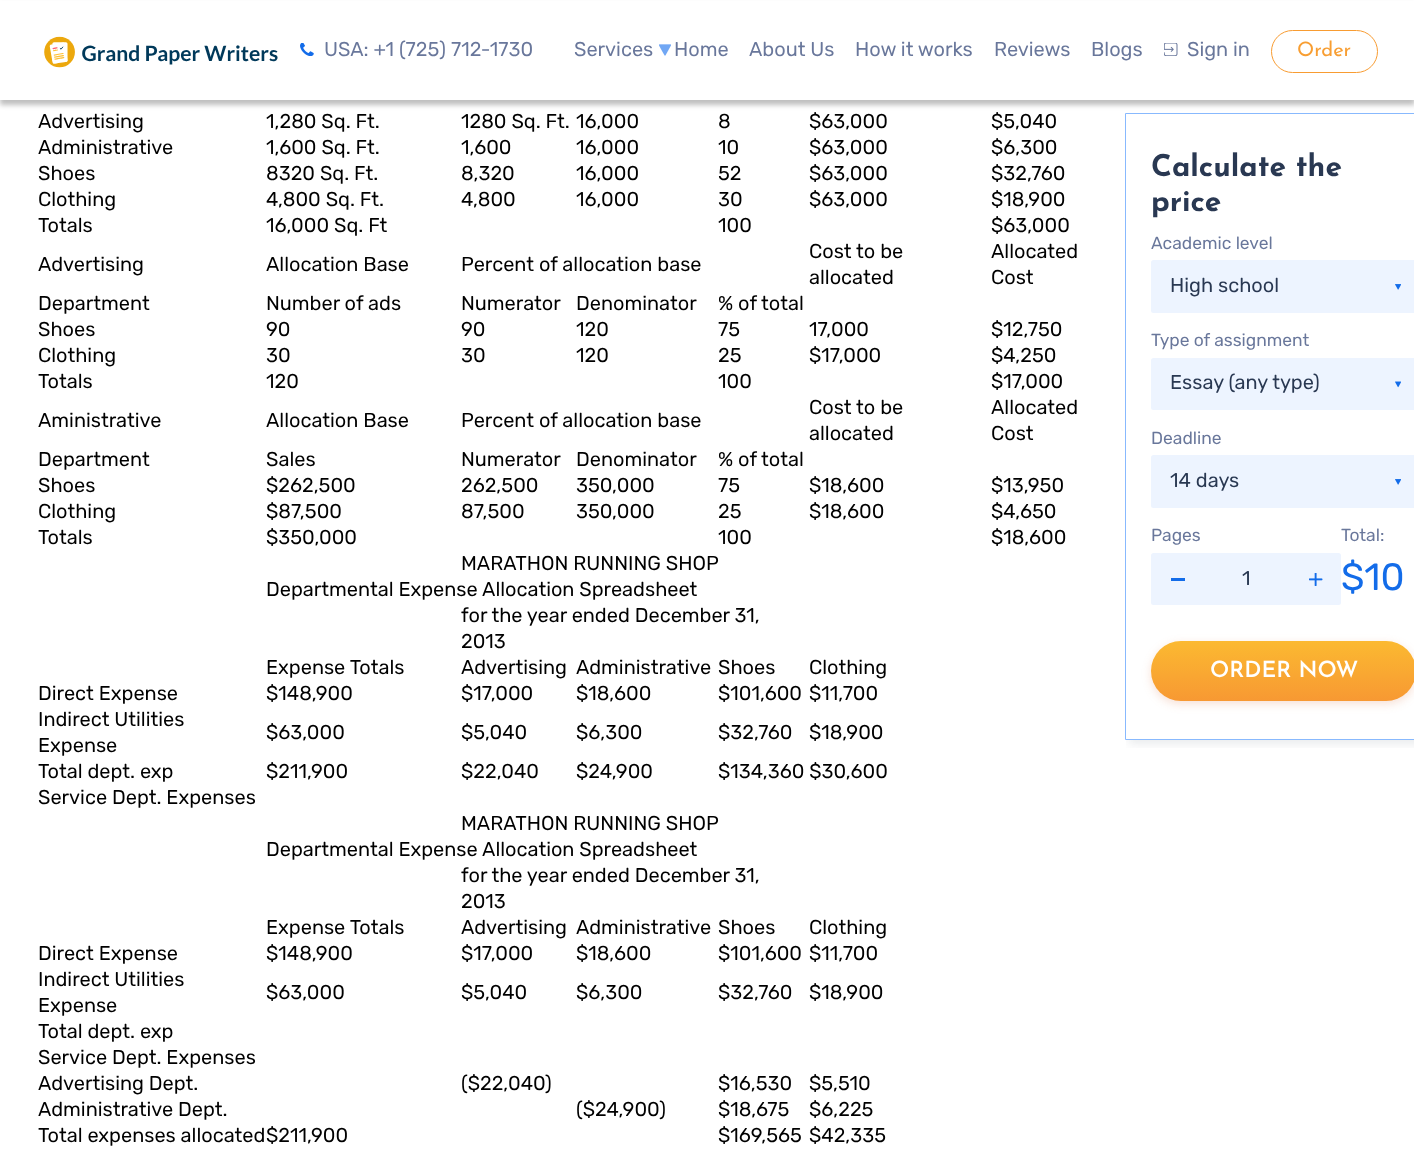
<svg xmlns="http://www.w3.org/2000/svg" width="1414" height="1175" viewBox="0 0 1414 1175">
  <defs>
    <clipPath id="clip1"><path d="M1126 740h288v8H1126z"/></clipPath>
    <linearGradient id="g1" gradientUnits="userSpaceOnUse" x1="1284" y1="614" x2="1284" y2="770"><stop offset="0" stop-color="#fdc830"/><stop offset="1" stop-color="#f37335"/></linearGradient>
  </defs>
  <rect width="100%" height="100%" fill="#fff"/>
  <g clip-path="url(#clip1)">
    <path d="M1129 116h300v628H1129z" fill="#2938521a" filter="blur(5px)"/>
  </g>
  <path d="M1125.5 113.5h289v626H1125.5z" fill="none" stroke="#88b9fe"/>
  <path d="M0 5h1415v100H0z" fill="#00000040" filter="blur(2.5px)"/>
  <path d="M0 1h1414v99H0z" fill="#fff"/>
  <image x="44" y="36" width="234" height="32" href="img/1.png"/>
  <image x="300" y="43" width="14" height="13" href="img/2.png"/>
  <image x="659" y="44" width="12" height="12" href="img/3.png"/>
  <image x="1164" y="43" width="14" height="13" href="img/4.png"/>
  <rect x="1271.5" y="30.5" width="106" height="42" rx="21" fill="none" stroke="#f89c32"/>
  <rect x="1151" y="260" width="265" height="53" rx="2.5" fill="#edf4ff"/>
  <image x="1395" y="284" width="6" height="6" href="img/5.png"/>
  <rect x="1151" y="358" width="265" height="52" rx="2.5" fill="#edf4ff"/>
  <image x="1395" y="381" width="6" height="7" href="img/6.png"/>
  <rect x="1151" y="455" width="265" height="53" rx="2.5" fill="#edf4ff"/>
  <image x="1395" y="479" width="6" height="6" href="img/5.png"/>
  <rect x="1151" y="553" width="190" height="52" rx="2.5" fill="#edf4ff"/>
  <path d="M1171 578h14v3H1171z" fill="#136ce9"/>
  <image x="1309" y="573" width="14" height="13" href="img/7.png"/>
  <rect x="1151" y="644" width="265" height="60" rx="30" fill="#d9642c33" filter="blur(5px)"/>
  <rect x="1151" y="641" width="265" height="60" rx="30" fill="url(#g1)"/>
  <g font-family="Rubik" font-size="20" fill="#69779b">
    <text x="324" y="56">USA: +1 (725) 712-1730</text>
    <text x="574" y="56">Services</text>
    <text x="674" y="56">Home</text>
    <text x="749" y="56">About Us</text>
    <text x="855" y="56">How it works</text>
    <text x="994" y="56">Reviews</text>
    <text x="1091" y="56">Blogs</text>
    <text x="1187" y="56">Sign in</text>
  </g>
  <text x="1297" y="56" font-family="Josefin Sans" font-size="20" fill="#f89e32">Order</text>
  <g font-family="Rubik" font-size="20" fill="#000">
    <text x="38" y="128">Advertising</text>
    <text x="266" y="128">1,280 Sq. Ft.</text>
    <text x="461" y="128">1280 Sq. Ft.</text>
    <text x="576" y="128">16,000</text>
    <text x="718" y="128">8</text>
    <text x="809" y="128">$63,000</text>
    <text x="991" y="128">$5,040</text>
    <text x="38" y="154">Administrative</text>
    <text x="266" y="154">1,600 Sq. Ft.</text>
    <text x="461" y="154">1,600</text>
    <text x="576" y="154">16,000</text>
    <text x="718" y="154">10</text>
    <text x="809" y="154">$63,000</text>
    <text x="991" y="154">$6,300</text>
    <text x="38" y="180">Shoes</text>
    <text x="266" y="180">8320 Sq. Ft.</text>
    <text x="461" y="180">8,320</text>
    <text x="576" y="180">16,000</text>
    <text x="718" y="180">52</text>
    <text x="809" y="180">$63,000</text>
    <text x="991" y="180">$32,760</text>
    <text x="38" y="206">Clothing</text>
    <text x="266" y="206">4,800 Sq. Ft.</text>
    <text x="461" y="206">4,800</text>
    <text x="576" y="206">16,000</text>
    <text x="718" y="206">30</text>
    <text x="809" y="206">$63,000</text>
    <text x="991" y="206">$18,900</text>
    <text x="38" y="232">Totals</text>
    <text x="266" y="232">16,000 Sq. Ft</text>
    <text x="718" y="232">100</text>
    <text x="991" y="232">$63,000</text>
    <text x="38" y="271">Advertising</text>
    <text x="266" y="271">Allocation Base</text>
    <text x="461" y="271">Percent of allocation base</text>
    <text x="809" y="258">Cost to be</text>
    <text x="809" y="284">allocated</text>
    <text x="991" y="258">Allocated</text>
    <text x="991" y="284">Cost</text>
    <text x="38" y="310">Department</text>
    <text x="266" y="310">Number of ads</text>
    <text x="461" y="310">Numerator</text>
    <text x="576" y="310">Denominator</text>
    <text x="718" y="310">% of total</text>
    <text x="38" y="336">Shoes</text>
    <text x="266" y="336">90</text>
    <text x="461" y="336">90</text>
    <text x="576" y="336">120</text>
    <text x="718" y="336">75</text>
    <text x="809" y="336">17,000</text>
    <text x="991" y="336">$12,750</text>
    <text x="38" y="362">Clothing</text>
    <text x="266" y="362">30</text>
    <text x="461" y="362">30</text>
    <text x="576" y="362">120</text>
    <text x="718" y="362">25</text>
    <text x="809" y="362">$17,000</text>
    <text x="991" y="362">$4,250</text>
    <text x="38" y="388">Totals</text>
    <text x="266" y="388">120</text>
    <text x="718" y="388">100</text>
    <text x="991" y="388">$17,000</text>
    <text x="38" y="427">Aministrative</text>
    <text x="266" y="427">Allocation Base</text>
    <text x="461" y="427">Percent of allocation base</text>
    <text x="809" y="414">Cost to be</text>
    <text x="809" y="440">allocated</text>
    <text x="991" y="414">Allocated</text>
    <text x="991" y="440">Cost</text>
    <text x="38" y="466">Department</text>
    <text x="266" y="466">Sales</text>
    <text x="461" y="466">Numerator</text>
    <text x="576" y="466">Denominator</text>
    <text x="718" y="466">% of total</text>
    <text x="38" y="492">Shoes</text>
    <text x="266" y="492">$262,500</text>
    <text x="461" y="492">262,500</text>
    <text x="576" y="492">350,000</text>
    <text x="718" y="492">75</text>
    <text x="809" y="492">$18,600</text>
    <text x="991" y="492">$13,950</text>
    <text x="38" y="518">Clothing</text>
    <text x="266" y="518">$87,500</text>
    <text x="461" y="518">87,500</text>
    <text x="576" y="518">350,000</text>
    <text x="718" y="518">25</text>
    <text x="809" y="518">$18,600</text>
    <text x="991" y="518">$4,650</text>
    <text x="38" y="544">Totals</text>
    <text x="266" y="544">$350,000</text>
    <text x="718" y="544">100</text>
    <text x="991" y="544">$18,600</text>
    <text x="461" y="570">MARATHON RUNNING SHOP</text>
    <text x="266" y="596">Departmental Expense Allocation Spreadsheet</text>
    <text x="461" y="622">for the year ended December 31,</text>
    <text x="461" y="648">2013</text>
    <text x="266" y="674">Expense Totals</text>
    <text x="461" y="674">Advertising</text>
    <text x="576" y="674">Administrative</text>
    <text x="718" y="674">Shoes</text>
    <text x="809" y="674">Clothing</text>
    <text x="38" y="700">Direct Expense</text>
    <text x="266" y="700">$148,900</text>
    <text x="461" y="700">$17,000</text>
    <text x="576" y="700">$18,600</text>
    <text x="718" y="700">$101,600</text>
    <text x="809" y="700">$11,700</text>
    <text x="38" y="726">Indirect Utilities</text>
    <text x="38" y="752">Expense</text>
    <text x="266" y="739">$63,000</text>
    <text x="461" y="739">$5,040</text>
    <text x="576" y="739">$6,300</text>
    <text x="718" y="739">$32,760</text>
    <text x="809" y="739">$18,900</text>
    <text x="38" y="778">Total dept. exp</text>
    <text x="266" y="778">$211,900</text>
    <text x="461" y="778">$22,040</text>
    <text x="576" y="778">$24,900</text>
    <text x="718" y="778">$134,360 $30,600</text>
    <text x="38" y="804">Service Dept. Expenses</text>
    <text x="461" y="830">MARATHON RUNNING SHOP</text>
    <text x="266" y="856">Departmental Expense Allocation Spreadsheet</text>
    <text x="461" y="882">for the year ended December 31,</text>
    <text x="461" y="908">2013</text>
    <text x="266" y="934">Expense Totals</text>
    <text x="461" y="934">Advertising</text>
    <text x="576" y="934">Administrative</text>
    <text x="718" y="934">Shoes</text>
    <text x="809" y="934">Clothing</text>
    <text x="38" y="960">Direct Expense</text>
    <text x="266" y="960">$148,900</text>
    <text x="461" y="960">$17,000</text>
    <text x="576" y="960">$18,600</text>
    <text x="718" y="960">$101,600</text>
    <text x="809" y="960">$11,700</text>
    <text x="38" y="986">Indirect Utilities</text>
    <text x="38" y="1012">Expense</text>
    <text x="266" y="999">$63,000</text>
    <text x="461" y="999">$5,040</text>
    <text x="576" y="999">$6,300</text>
    <text x="718" y="999">$32,760</text>
    <text x="809" y="999">$18,900</text>
    <text x="38" y="1038">Total dept. exp</text>
    <text x="38" y="1064">Service Dept. Expenses</text>
    <text x="38" y="1090">Advertising Dept.</text>
    <text x="461" y="1090">($22,040)</text>
    <text x="718" y="1090">$16,530</text>
    <text x="809" y="1090">$5,510</text>
    <text x="38" y="1116">Administrative Dept.</text>
    <text x="576" y="1116">($24,900)</text>
    <text x="718" y="1116">$18,675</text>
    <text x="809" y="1116">$6,225</text>
    <text x="38" y="1142">Total expenses allocated</text>
    <text x="266" y="1142">$211,900</text>
    <text x="718" y="1142">$169,565</text>
    <text x="809" y="1142">$42,335</text>
  </g>
  <g font-family="Josefin Sans" font-size="30" font-weight="bold" fill="#293852">
    <text x="1151" y="176">Calculate the</text>
    <text x="1151" y="211">price</text>
  </g>
  <text x="1151" y="249" font-family="Rubik" font-size="17.5" fill="#69779b">Academic level</text>
  <text x="1170" y="292" font-family="Rubik" font-size="20" fill="#293852">High school</text>
  <text x="1151" y="346" font-family="Rubik" font-size="17.5" fill="#69779b">Type of assignment</text>
  <text x="1170" y="389" font-family="Rubik" font-size="20" fill="#293852">Essay (any type)</text>
  <text x="1151" y="444" font-family="Rubik" font-size="17.5" fill="#69779b">Deadline</text>
  <text x="1170" y="487" font-family="Rubik" font-size="20" fill="#293852">14 days</text>
  <text x="1151" y="541" font-family="Rubik" font-size="17.5" fill="#69779b">Pages</text>
  <text x="1242" y="585" font-family="Rubik" font-size="20" fill="#293852">1</text>
  <text x="1341" y="541" font-family="Rubik" font-size="17.5" fill="#69779b">Total:</text>
  <text x="1341" y="590" font-family="Rubik" font-size="38" fill="#136ce9">$10</text>
  <text x="1210" y="677" font-family="Josefin Sans" font-size="22.5" font-weight="600" fill="#fff">ORDER NOW</text>
</svg>
